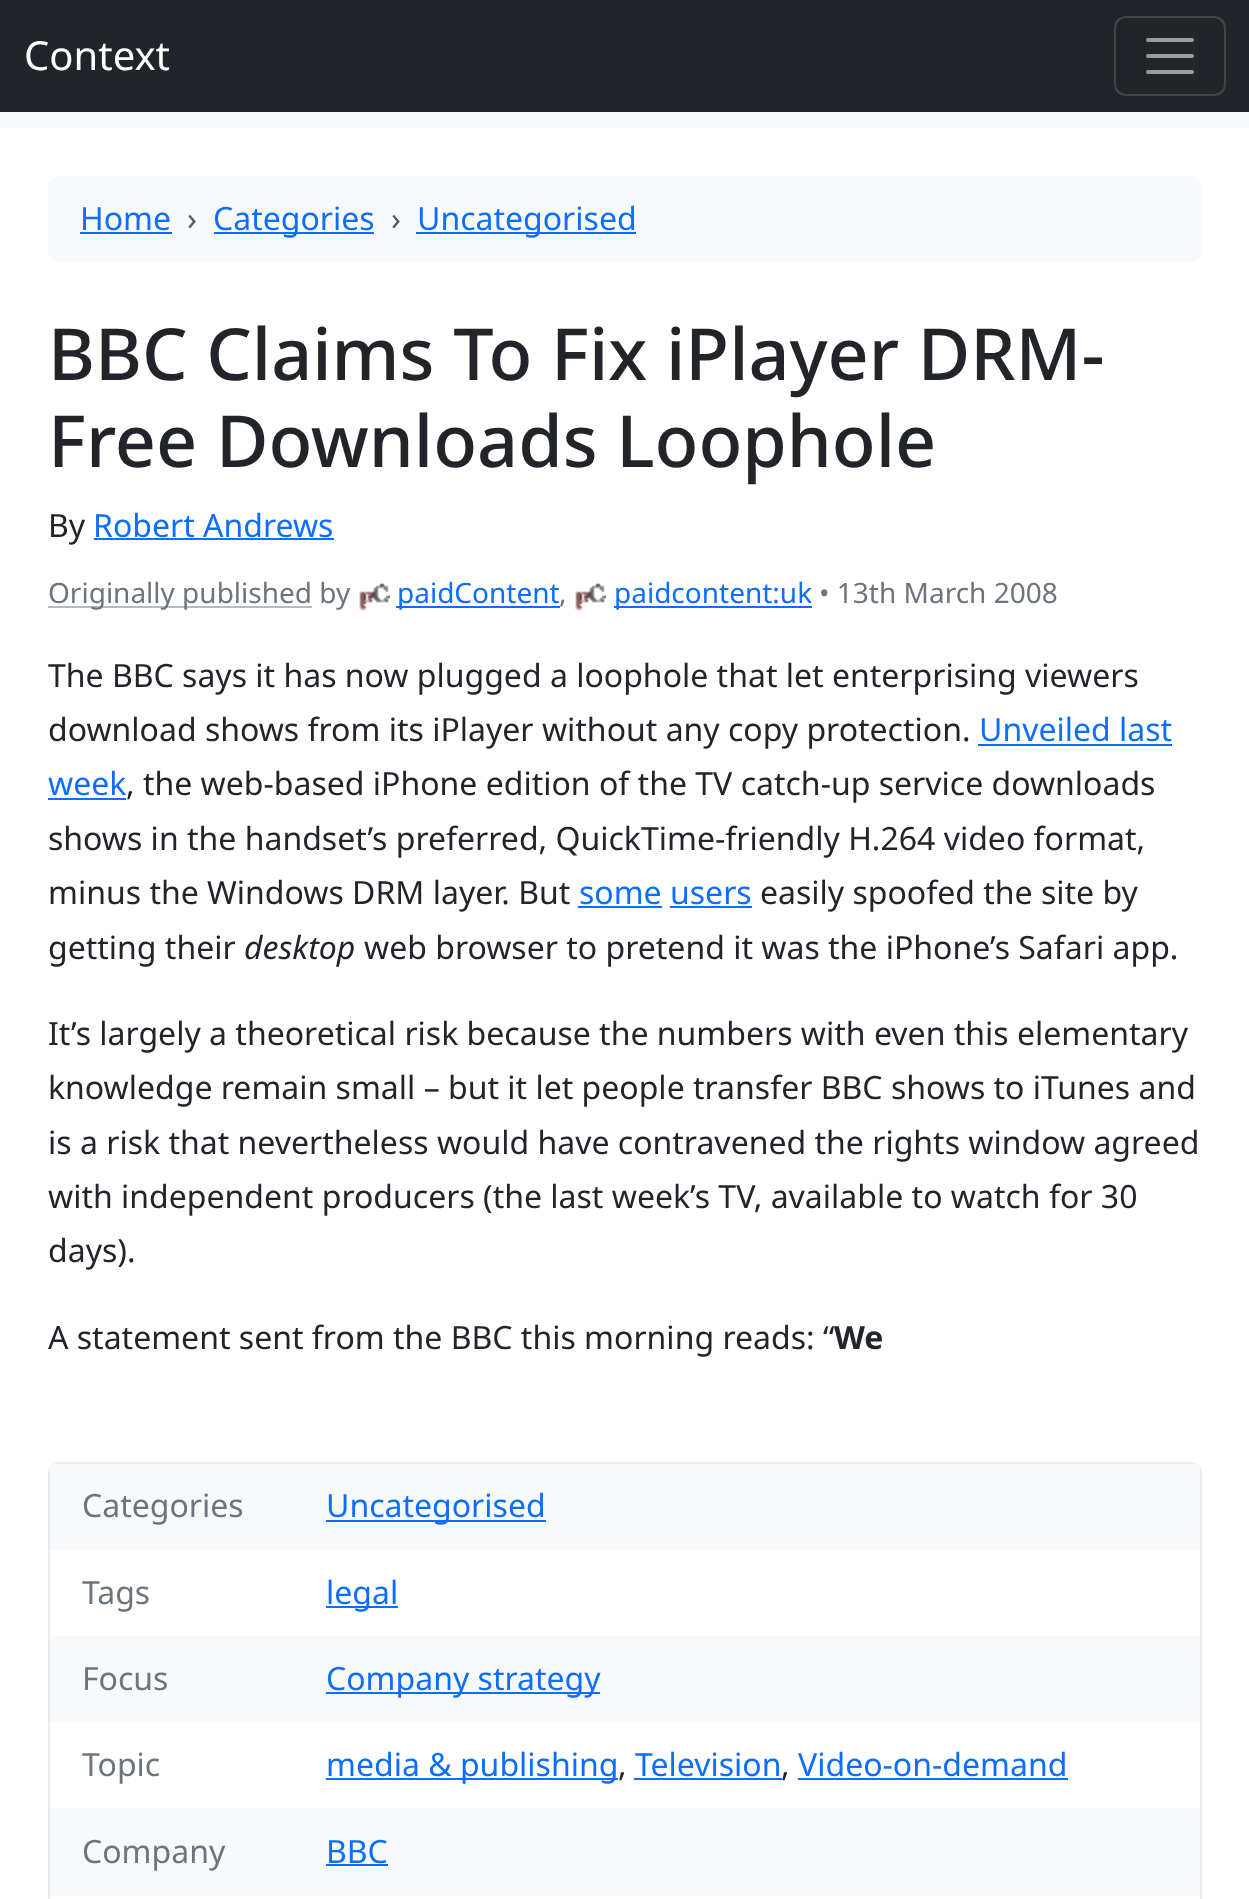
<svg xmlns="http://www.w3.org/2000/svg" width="1249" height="1899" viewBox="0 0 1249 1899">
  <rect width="100%" height="100%" fill="#fff"/>
  <path d="M0 0h1249v112H0z" fill="#212529"/>
  <rect x="1115" y="17" width="110" height="78" rx="11" fill="none" stroke="#424649" stroke-width="2"/>
  <path d="M1148 40H1192M1148 56H1192M1148 72H1192" fill="none" stroke="#9b9d9f" stroke-width="4" stroke-linecap="round"/>
  <path d="M0 112h1249v16H0z" fill="#f8f9fa"/>
  <rect x="48" y="176" width="1154" height="86" rx="12" fill="#f8f9fa"/>
  <path d="M80 232h92v2H80z" fill="#0d6efd"/>
  <path d="M214 232h160v2H214z" fill="#0d6efd"/>
  <path d="M416 232h220v2H416z" fill="#0d6efd"/>
  <path d="M94 538h240v2H94z" fill="#0d6efd"/>
  <path d="M48 606h264v2H48z" fill="#b6babe"/>
  <image x="359" y="583" width="31" height="28" href="img/1.png"/>
  <path d="M396 606h164v2H396z" fill="#0d6efd"/>
  <image x="575" y="583" width="31" height="28" href="img/1.png"/>
  <path d="M614 606h198v2H614z" fill="#0d6efd"/>
  <path d="M978 744h194v2H978z" fill="#0d6efd"/>
  <path d="M48 798h78v2H48z" fill="#0d6efd"/>
  <path d="M578 906h84v2H578z" fill="#0d6efd"/>
  <path d="M670 906h82v2H670z" fill="#0d6efd"/>
  <rect x="49" y="1463" width="1152" height="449" rx="11" fill="none" stroke="#e9ecef" stroke-width="2"/>
  <path d="M50 1464h1150v86H50z" fill="#f8f9fa"/>
  <path d="M326 1520h220v2H326z" fill="#0d6efd"/>
  <path d="M326 1606h72v2H326z" fill="#0d6efd"/>
  <path d="M50 1636h1150v86H50z" fill="#f8f9fa"/>
  <path d="M326 1692h274v2H326z" fill="#0d6efd"/>
  <path d="M326 1778h292v2H326z" fill="#0d6efd"/>
  <path d="M634 1778h148v2H634z" fill="#0d6efd"/>
  <path d="M798 1778h270v2H798z" fill="#0d6efd"/>
  <path d="M50 1808h1150v88H50z" fill="#f8f9fa"/>
  <path d="M326 1864h62v2H326z" fill="#0d6efd"/>
  <text x="24" y="70" font-family="Noto Sans" font-size="40" fill="#fff">Context</text>
  <text x="80" y="230" font-family="Noto Sans" font-size="32" fill="#0d6efd">Home</text>
  <text x="187" y="230" font-family="Noto Sans" font-size="32" fill="#575a5d">›</text>
  <text x="213" y="230" font-family="Noto Sans" font-size="32" fill="#0d6efd">Categories</text>
  <text x="391" y="230" font-family="Noto Sans" font-size="32" fill="#575a5d">›</text>
  <text x="417" y="230" font-family="Noto Sans" font-size="32" fill="#0d6efd">Uncategorised</text>
  <g font-family="Noto Sans" font-size="71.8" font-weight="500" fill="#212529">
    <text x="48" y="380">BBC Claims To Fix iPlayer DRM-</text>
    <text x="48" y="467">Free Downloads Loophole</text>
  </g>
  <text x="48" y="537" font-family="Noto Sans" font-size="32" fill="#212529">By</text>
  <text x="93" y="537" font-family="Noto Sans" font-size="32" fill="#0d6efd">Robert Andrews</text>
  <text x="48" y="603" font-family="Noto Sans" font-size="28" fill="#6c757d">Originally published by</text>
  <text x="397" y="603" font-family="Noto Sans" font-size="28" fill="#0d6efd">paidContent</text>
  <text x="559" y="603" font-family="Noto Sans" font-size="28" fill="#6c757d">,</text>
  <text x="614" y="603" font-family="Noto Sans" font-size="28" fill="#0d6efd">paidcontent:uk</text>
  <text x="819" y="603" font-family="Noto Sans" font-size="28" fill="#6c757d">• 13th March 2008</text>
  <g font-family="Noto Sans" font-size="32" fill="#212529">
    <text x="48" y="687">The BBC says it has now plugged a loophole that let enterprising viewers</text>
    <text x="48" y="741">download shows from its iPlayer without any copy protection.</text>
  </g>
  <g font-family="Noto Sans" font-size="32" fill="#0d6efd">
    <text x="979" y="741">Unveiled last</text>
    <text x="48" y="795">week</text>
  </g>
  <g font-family="Noto Sans" font-size="32" fill="#212529">
    <text x="126" y="795">, the web-based iPhone edition of the TV catch-up service downloads</text>
    <text x="48" y="850">shows in the handset’s preferred, QuickTime-friendly H.264 video format,</text>
    <text x="48" y="904">minus the Windows DRM layer. But</text>
  </g>
  <text x="579" y="904" font-family="Noto Sans" font-size="32" fill="#0d6efd">some users</text>
  <g font-family="Noto Sans" font-size="32" fill="#212529">
    <text x="760" y="904">easily spoofed the site by</text>
    <text x="48" y="959">getting their</text>
  </g>
  <text x="244" y="959" font-family="Noto Sans" font-size="32" font-style="italic" fill="#212529">desktop</text>
  <g font-family="Noto Sans" font-size="32" fill="#212529">
    <text x="364" y="959">web browser to pretend it was the iPhone’s Safari app.</text>
    <text x="48" y="1045">It’s largely a theoretical risk because the numbers with even this elementary</text>
    <text x="48" y="1099">knowledge remain small – but it let people transfer BBC shows to iTunes and</text>
    <text x="48" y="1154">is a risk that nevertheless would have contravened the rights window agreed</text>
    <text x="48" y="1208">with independent producers (the last week’s TV, available to watch for 30</text>
    <text x="48" y="1262">days).</text>
    <text x="48" y="1349">A statement sent from the BBC this morning reads: “</text>
  </g>
  <text x="834" y="1349" font-family="Noto Sans" font-size="32" font-weight="bold" fill="#212529">We</text>
  <text x="82" y="1517" font-family="Noto Sans" font-size="32" fill="#6c757d">Categories</text>
  <text x="326" y="1517" font-family="Noto Sans" font-size="32" fill="#0d6efd">Uncategorised</text>
  <text x="82" y="1604" font-family="Noto Sans" font-size="32" fill="#6c757d">Tags</text>
  <text x="326" y="1604" font-family="Noto Sans" font-size="32" fill="#0d6efd">legal</text>
  <text x="82" y="1690" font-family="Noto Sans" font-size="32" fill="#6c757d">Focus</text>
  <text x="326" y="1690" font-family="Noto Sans" font-size="32" fill="#0d6efd">Company strategy</text>
  <text x="82" y="1776" font-family="Noto Sans" font-size="32" fill="#6c757d">Topic</text>
  <text x="326" y="1776" font-family="Noto Sans" font-size="32" fill="#0d6efd">media &amp; publishing</text>
  <text x="618" y="1776" font-family="Noto Sans" font-size="32" fill="#212529">,</text>
  <text x="635" y="1776" font-family="Noto Sans" font-size="32" fill="#0d6efd">Television</text>
  <text x="781" y="1776" font-family="Noto Sans" font-size="32" fill="#212529">,</text>
  <text x="798" y="1776" font-family="Noto Sans" font-size="32" fill="#0d6efd">Video-on-demand</text>
  <text x="82" y="1863" font-family="Noto Sans" font-size="32" fill="#6c757d">Company</text>
  <text x="326" y="1863" font-family="Noto Sans" font-size="32" fill="#0d6efd">BBC</text>
</svg>
